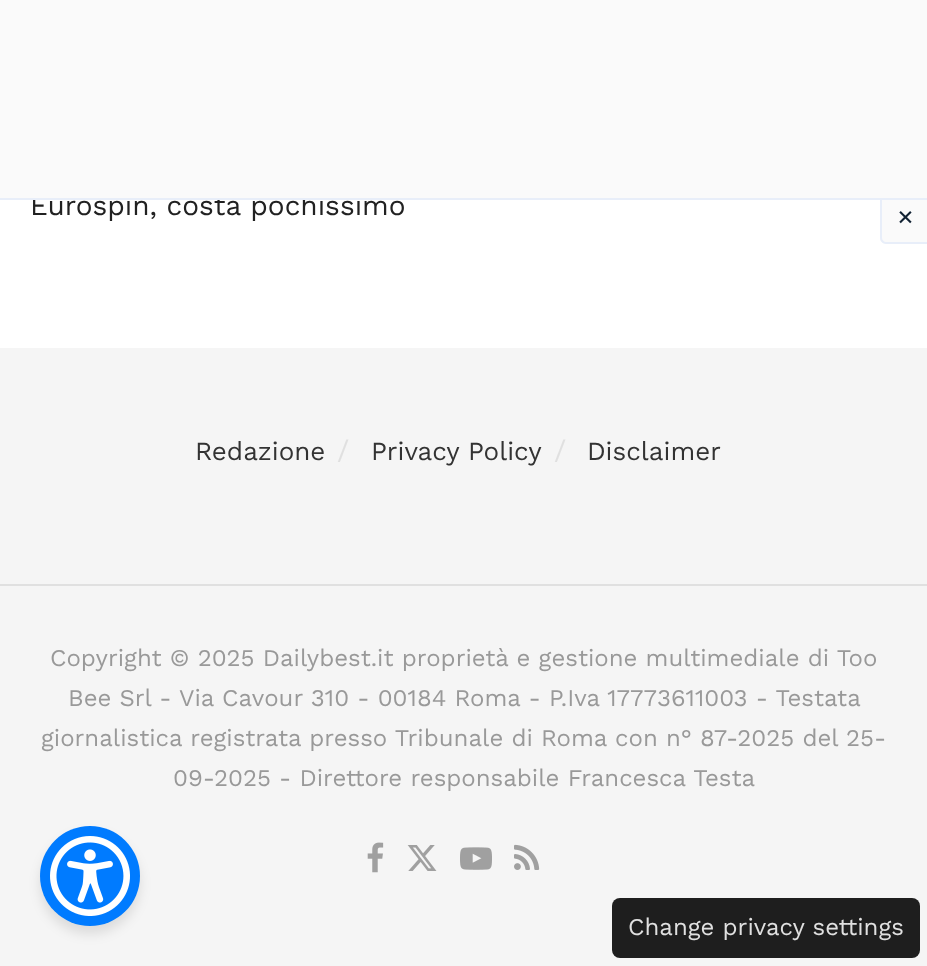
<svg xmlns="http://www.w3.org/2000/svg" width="927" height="966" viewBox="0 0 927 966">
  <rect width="100%" height="100%" fill="#fff"/>
  <path d="M0 348h927v618H0z" fill="#f5f5f5"/>
  <path d="M0 584h927v2H0z" fill="#e0e0e0"/>
  <image x="367" y="842" width="17" height="31" href="img/1.png"/>
  <image x="407" y="845" width="30" height="26" href="img/2.png"/>
  <image x="460" y="847" width="32" height="23" href="img/3.png"/>
  <image x="514" y="844" width="26" height="26" href="img/4.png"/>
  <path d="M880 196H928V244H886C882.5 244 880 241.5 880 238Z" fill="#fafafa"/>
  <path d="M880 196H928V244H886C883 244 880 241 880 238ZM882 196H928V242H886C884 242 882 240 882 238Z" fill="#e8eef9" fill-rule="evenodd"/>
  <rect x="40" y="834" width="100" height="100" rx="50" fill="#0000001a" filter="blur(6px)"/>
  <circle cx="90" cy="876" r="50" fill="#007bff"/>
  <image x="50" y="836" width="80" height="80" href="img/5.png"/>
  <rect x="612" y="898" width="308" height="60" rx="8" fill="#1e1e1e"/>
  <text x="30" y="215" font-family="Work Sans" font-size="28" fill="#212121">Eurospin, costa pochissimo</text>
  <text x="195" y="460" font-family="Work Sans" font-size="26" fill="#333">Redazione</text>
  <text x="337" y="460" font-family="Work Sans" font-size="28" fill="#e0e0e0">/</text>
  <text x="371" y="460" font-family="Work Sans" font-size="26" fill="#333">Privacy Policy</text>
  <text x="554" y="460" font-family="Work Sans" font-size="28" fill="#e0e0e0">/</text>
  <text x="587" y="460" font-family="Work Sans" font-size="26" fill="#333">Disclaimer</text>
  <g font-family="Work Sans" font-size="24" fill="#999">
    <text x="50" y="666">Copyright © 2025 Dailybest.it proprietà e gestione multimediale di Too</text>
    <text x="68" y="706">Bee Srl - Via Cavour 310 - 00184 Roma - P.Iva 17773611003 - Testata</text>
    <text x="41" y="746">giornalistica registrata presso Tribunale di Roma con n° 87-2025 del 25-</text>
    <text x="173" y="786">09-2025 - Direttore responsabile Francesca Testa</text>
  </g>
  <path d="M0 0h927v198H0z" fill="#fafafa"/>
  <path d="M0 198h927v2H0z" fill="#e8eef9"/>
  <text x="897" y="226" font-family="Work Sans" font-size="28" fill="#123">×</text>
  <text x="628" y="935" font-family="Work Sans" font-size="24" fill="#e0e0e0">Change privacy settings</text>
</svg>
